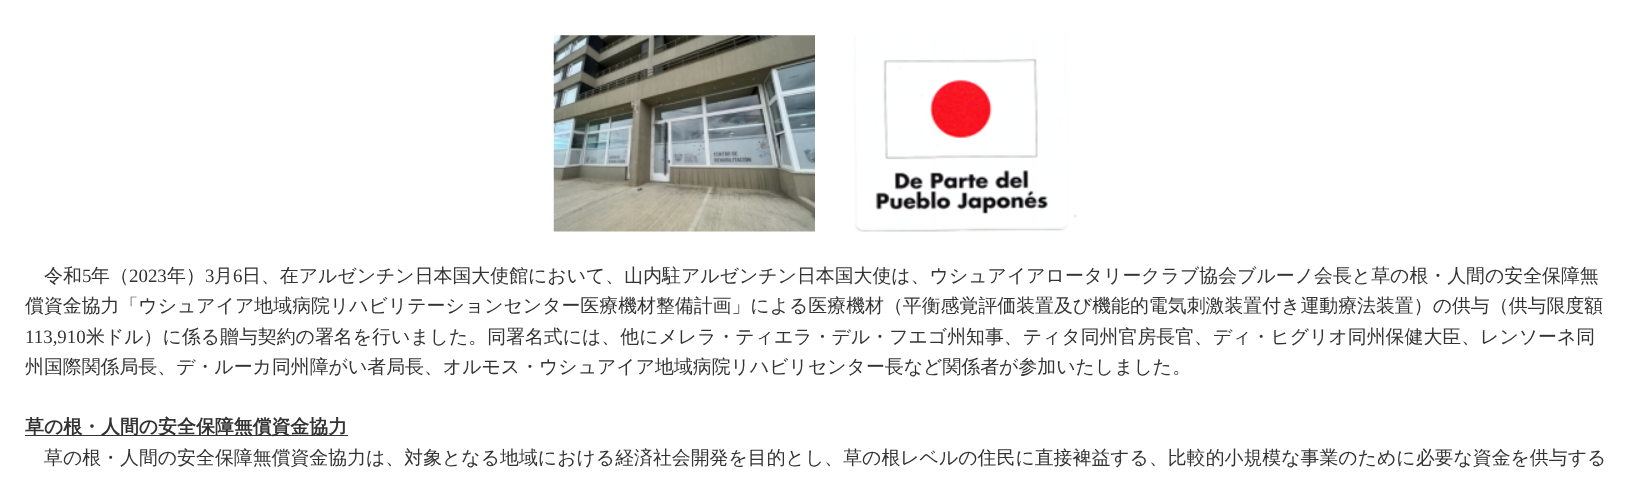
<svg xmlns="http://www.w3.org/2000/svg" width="1631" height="486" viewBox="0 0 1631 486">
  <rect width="100%" height="100%" fill="#fff"/>
  <image x="553" y="35" width="262" height="197" href="img/1.png"/>
  <image x="854" y="35" width="223" height="197" href="img/2.png"/>
  <path d="M25 435h323v1H25z" fill="#333"/>
  <text x="44" y="282" font-family="WenQuanYi Zen Hei" font-size="18.9" font-weight="500" fill="#333">令和</text>
  <text x="82" y="282" font-family="Liberation Serif" font-size="18.9" fill="#333">5</text>
  <text x="91" y="282" font-family="WenQuanYi Zen Hei" font-size="18.9" font-weight="500" fill="#333">年（</text>
  <text x="129" y="282" font-family="Liberation Serif" font-size="18.9" fill="#333">2023</text>
  <text x="167" y="282" font-family="WenQuanYi Zen Hei" font-size="18.9" font-weight="500" fill="#333">年）</text>
  <text x="205" y="282" font-family="Liberation Serif" font-size="18.9" fill="#333">3</text>
  <text x="214" y="282" font-family="WenQuanYi Zen Hei" font-size="18.9" font-weight="500" fill="#333">月</text>
  <text x="233" y="282" font-family="Liberation Serif" font-size="18.9" fill="#333">6</text>
  <g font-family="WenQuanYi Zen Hei" font-size="18.9" font-weight="500" fill="#333">
    <text x="242" y="282">日、在アルゼンチン日本国大使館において、山内駐アルゼンチン日本国大使は、ウシュアイアロータリークラブ協会ブルーノ会長と草の根・人間の安全保障無</text>
    <text x="25" y="312">償資金協力「ウシュアイア地域病院リハビリテーションセンター医療機材整備計画」による医療機材（平衡感覚評価装置及び機能的電気刺激装置付き運動療法装置）の供与（供与限度額</text>
  </g>
  <text x="25" y="343" font-family="Liberation Serif" font-size="18.9" fill="#333">113,910</text>
  <g font-family="WenQuanYi Zen Hei" font-size="18.9" font-weight="500" fill="#333">
    <text x="86" y="343">米ドル）に係る贈与契約の署名を行いました。同署名式には、他にメレラ・ティエラ・デル・フエゴ州知事、ティタ同州官房長官、ディ・ヒグリオ同州保健大臣、レンソーネ同</text>
    <text x="25" y="373">州国際関係局長、デ・ルーカ同州障がい者局長、オルモス・ウシュアイア地域病院リハビリセンター長など関係者が参加いたしました。</text>
  </g>
  <text x="25" y="433" font-family="WenQuanYi Zen Hei" font-size="18.9" font-weight="bold" fill="#333">草の根・人間の安全保障無償資金協力</text>
  <text x="44" y="464" font-family="WenQuanYi Zen Hei" font-size="18.9" font-weight="500" fill="#333">草の根・人間の安全保障無償資金協力は、対象となる地域における経済社会開発を目的とし、草の根レベルの住民に直接裨益する、比較的小規模な事業のために必要な資金を供与する</text>
</svg>
